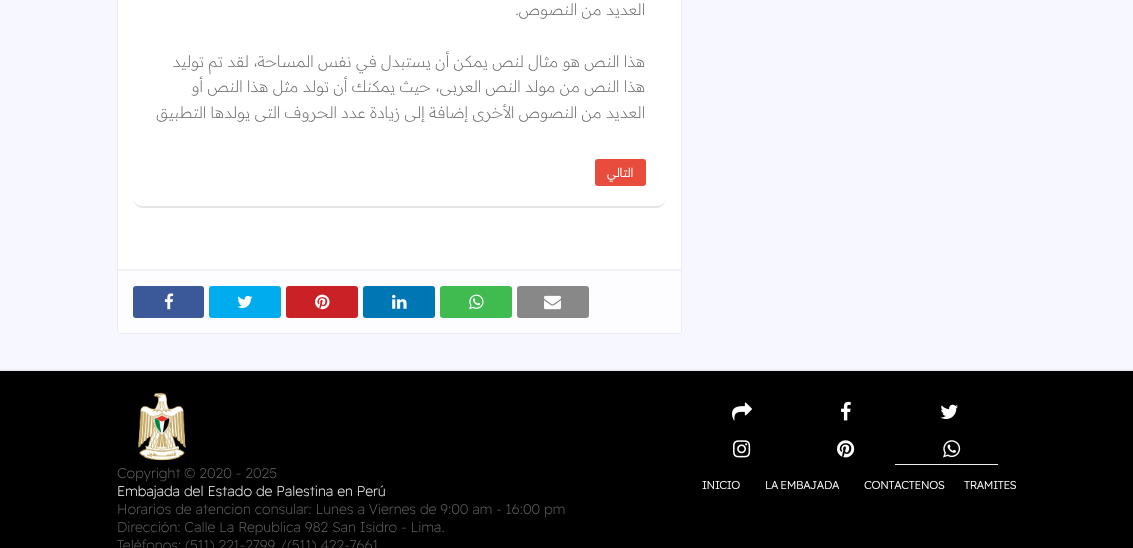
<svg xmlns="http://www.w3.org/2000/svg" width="1133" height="548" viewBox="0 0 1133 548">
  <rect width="100%" height="100%" fill="#f7f7ff"/>
  <rect x="117.5" y="-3.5" width="564" height="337" rx="2.5" fill="#fff" stroke="#ebebf3"/>
  <path d="M133 196C133 202 136 208 143 208H656C663 208 666 202 666 196C666 202 662 206 656 206H143C137 206 133 202 133 196Z" fill="#e6e6e6"/>
  <rect x="133" y="-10" width="533" height="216" rx="10" fill="#fff"/>
  <rect x="595" y="159" width="51" height="27" rx="3" fill="#e74c3c"/>
  <path d="M118 269H681V331C681 332 680 333 679 333H120C119 333 118 332 118 331Z" fill="#fdfdff"/>
  <path d="M118 269h563v2H118z" fill="#f2f2f6"/>
  <rect x="133" y="286" width="71" height="32" rx="3" fill="#3b5999"/>
  <image x="164" y="293" width="10" height="17" href="img/1.png"/>
  <rect x="209" y="286" width="72" height="32" rx="3" fill="#00acee"/>
  <image x="237" y="295" width="16" height="13" href="img/2.png"/>
  <rect x="286" y="286" width="72" height="32" rx="3" fill="#ca2127"/>
  <image x="315" y="294" width="15" height="16" href="img/3.png"/>
  <rect x="363" y="286" width="72" height="32" rx="3" fill="#0077b5"/>
  <image x="392" y="294" width="15" height="15" href="img/4.png"/>
  <rect x="440" y="286" width="72" height="32" rx="3" fill="#3fbb50"/>
  <image x="469" y="294" width="15" height="16" href="img/5.png"/>
  <rect x="517" y="286" width="72" height="32" rx="3" fill="#888"/>
  <image x="544" y="295" width="17" height="15" href="img/6.png"/>
  <path d="M0 371h1133v177H0z" fill="#000"/>
  <path d="M0 369h1133v2H0z" fill="#ebebf3"/>
  <image x="138" y="392" width="48" height="69" href="img/7.png"/>
  <image x="732" y="402" width="20" height="19" href="img/8.png"/>
  <image x="841" y="401" width="10" height="20" href="img/9.png"/>
  <image x="940" y="404" width="18" height="15" href="img/10.png"/>
  <image x="733" y="440" width="18" height="18" href="img/11.png"/>
  <image x="837" y="440" width="18" height="18" href="img/12.png"/>
  <path d="M895 464h103v1H895z" fill="#eee"/>
  <image x="943" y="440" width="18" height="18" href="img/13.png"/>
  <g font-family="Readex Pro" font-size="16" font-weight="200" direction="rtl" fill="#656565">
    <text x="645" y="15">العديد من النصوص.</text>
    <text x="645" y="67">هذا النص هو مثال لنص يمكن أن يستبدل في نفس المساحة، لقد تم توليد</text>
    <text x="645" y="92">هذا النص من مولد النص العربى، حيث يمكنك أن تولد مثل هذا النص أو</text>
    <text x="645" y="118">العديد من النصوص الأخرى إضافة إلى زيادة عدد الحروف التى يولدها التطبيق</text>
  </g>
  <text x="633" y="177" font-family="Readex Pro" font-size="12" font-weight="bold" direction="rtl" fill="#fff">التالي</text>
  <text x="117" y="478" font-family="Readex Pro" font-size="14" font-weight="200" fill="#656565">Copyright © 2020 - 2025</text>
  <text x="117" y="496" font-family="Readex Pro" font-size="14" font-weight="200" fill="#fff">Embajada del Estado de Palestina en Perú</text>
  <g font-family="Readex Pro" font-size="14" font-weight="200" fill="#656565">
    <text x="117" y="514">Horarios de atencion consular: Lunes a Viernes de 9:00 am - 16:00 pm</text>
    <text x="117" y="532">Dirección: Calle La Republica 982 San Isidro - Lima.</text>
    <text x="117" y="550">Teléfonos: (511) 221-2799 /(511) 422-7661</text>
  </g>
  <g font-family="Readex Pro" font-size="11" font-weight="bold" fill="#fff">
    <text x="702" y="489">INICIO</text>
    <text x="765" y="489" word-spacing="-1">LA EMBAJADA</text>
    <text x="864" y="489">CONTACTENOS</text>
    <text x="964" y="489">TRAMITES</text>
  </g>
</svg>
